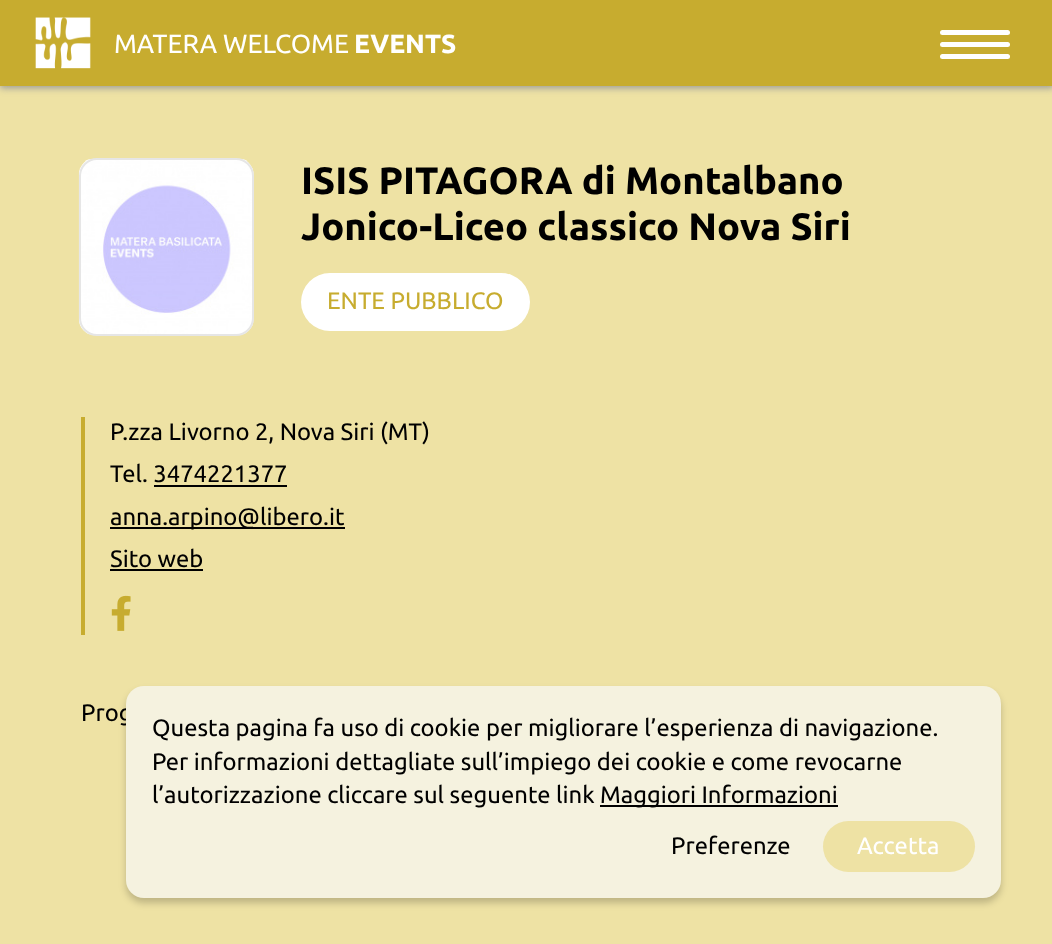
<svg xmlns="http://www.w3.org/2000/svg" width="1052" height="944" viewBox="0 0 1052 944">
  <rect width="100%" height="100%" fill="#eee2a4"/>
  <path d="M0 2h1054v86H0z" fill="#999" filter="blur(3.5px)"/>
  <path d="M0 0h1052v86H0z" fill="#c7ac2f"/>
  <image x="35" y="17" width="56" height="52" href="img/1.png"/>
  <rect x="940" y="30" width="70" height="5" rx="2.5" fill="#fff"/>
  <rect x="940" y="42" width="70" height="5" rx="2.5" fill="#fff"/>
  <rect x="940" y="54" width="70" height="5" rx="2.5" fill="#fff"/>
  <image x="78" y="159" width="176" height="176" href="img/2.png"/>
  <rect x="80" y="159" width="173" height="176" rx="17" fill="none" stroke="#e6e6e6" stroke-width="2"/>
  <rect x="301" y="273" width="229" height="58" rx="29" fill="#fff"/>
  <path d="M81 417h4v218H81z" fill="#c7ac2f"/>
  <path d="M154 485h133v2H154z" fill="#000"/>
  <path d="M110 527h235v2H110z" fill="#000"/>
  <path d="M110 569h93v2H110z" fill="#000"/>
  <image x="111" y="595" width="20" height="36" href="img/3.png"/>
  <rect x="126" y="691" width="875" height="212" rx="18" fill="#00000033" filter="blur(3.5px)"/>
  <text x="114" y="53" font-family="Ubuntu" font-size="26.25" fill="#fff">MATERA WELCOME</text>
  <text x="354" y="53" font-family="Ubuntu" font-size="26.25" font-weight="bold" fill="#fff">EVENTS</text>
  <g font-family="Ubuntu" font-size="38.1" font-weight="bold" fill="#000">
    <text x="301" y="194">ISIS PITAGORA di Montalbano</text>
    <text x="301" y="240">Jonico-Liceo classico Nova Siri</text>
  </g>
  <text x="327" y="309" font-family="Ubuntu" font-size="23.8" fill="#c7ac2f">ENTE PUBBLICO</text>
  <g font-family="Ubuntu" font-size="23.8" fill="#000">
    <text x="110" y="440">P.zza Livorno 2, Nova Siri (MT)</text>
    <text x="110" y="482">Tel. 3474221377</text>
    <text x="110" y="525">anna.arpino@libero.it</text>
    <text x="110" y="567">Sito web</text>
    <text x="81" y="721">Prog</text>
  </g>
  <rect x="126" y="686" width="875" height="212" rx="18" fill="#f5f2df"/>
  <g font-family="Ubuntu" font-size="23.8" fill="#000">
    <text x="152" y="736">Questa pagina fa uso di cookie per migliorare l’esperienza di navigazione.</text>
    <text x="152" y="770">Per informazioni dettagliate sull’impiego dei cookie e come revocarne</text>
    <text x="152" y="803">l’autorizzazione cliccare sul seguente link</text>
  </g>
  <path d="M600 805h238v2H600z" fill="#000"/>
  <g font-family="Ubuntu" font-size="23.8" fill="#000">
    <text x="600" y="803">Maggiori Informazioni</text>
    <text x="671" y="854">Preferenze</text>
  </g>
  <rect x="823" y="821" width="152" height="51" rx="25.5" fill="#eee2a4"/>
  <text x="857" y="854" font-family="Ubuntu" font-size="23.8" fill="#fff">Accetta</text>
</svg>
